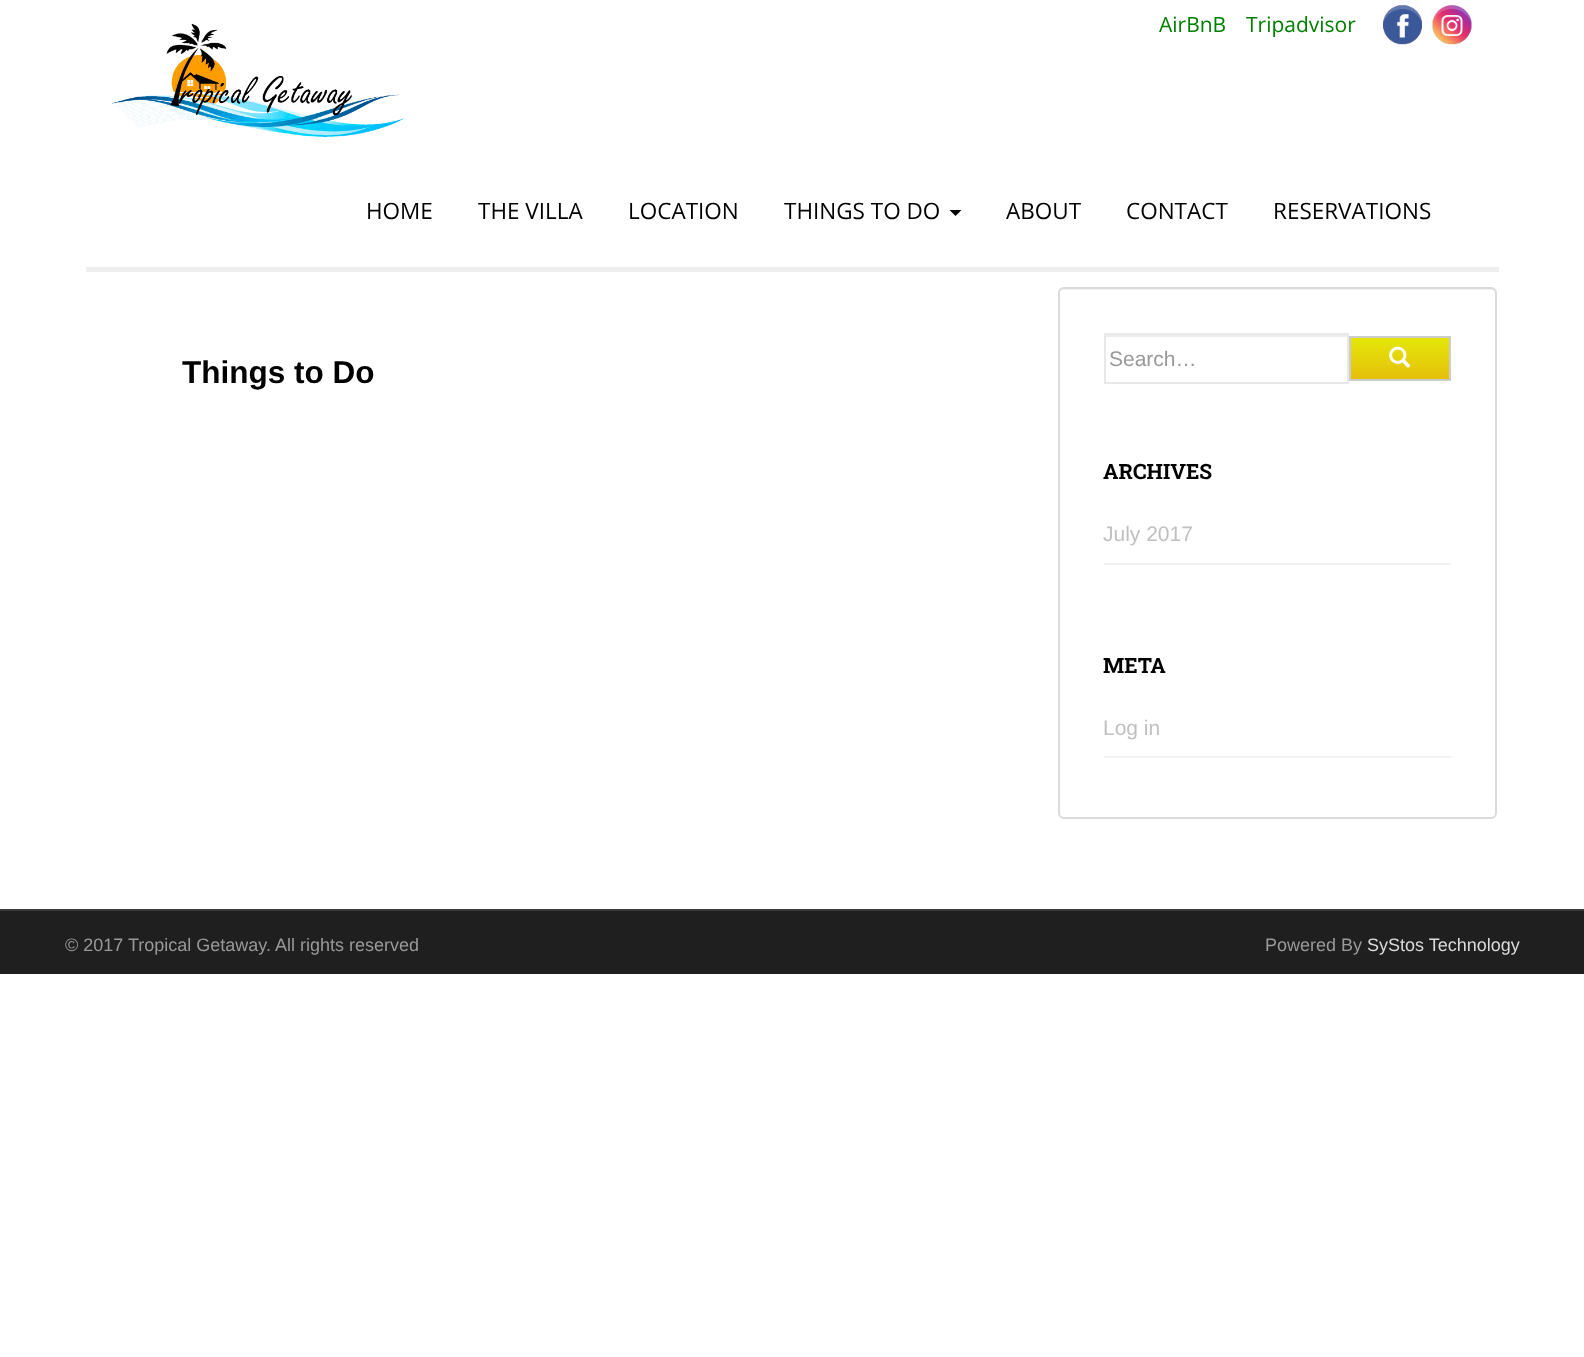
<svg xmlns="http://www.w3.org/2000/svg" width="1584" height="1357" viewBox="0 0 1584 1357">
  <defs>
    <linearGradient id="g1" gradientUnits="userSpaceOnUse" x1="1350" y1="338" x2="1350" y2="380"><stop offset="0" stop-color="#e3e60a"/><stop offset="1" stop-color="#e6bf0a"/></linearGradient>
  </defs>
  <rect width="100%" height="100%" fill="#fff"/>
  <path d="M86 267h1413v5H86z" fill="#eee"/>
  <image x="111" y="23" width="294" height="114" href="img/1.png"/>
  <image x="1383" y="5" width="39" height="40" href="img/2.png"/>
  <image x="1432" y="5" width="40" height="40" href="img/3.png"/>
  <path d="M949.5 210H961.5L955.5 216Z" fill="#000"/>
  <path d="M1064 290H1491C1493 290 1496 292 1496 294C1496 291 1494 288 1491 288H1064C1061 288 1059 291 1059 294C1059 292 1061 290 1064 290Z" fill="#f2f2f2"/>
  <rect x="1059" y="288" width="437" height="530" rx="5" fill="none" stroke="#dadada" stroke-width="2"/>
  <path d="M1106 335h241v2H1106z" fill="#ececec"/>
  <path d="M1105 334h243v49H1105z" fill="none" stroke="#e8e8e8" stroke-width="2"/>
  <path d="M1351 338h98v41H1351z" fill="url(#g1)"/>
  <path d="M1350 337h100v43H1350z" fill="none" stroke="#ccc" stroke-width="2"/>
  <image x="1389" y="346" width="22" height="22" href="img/4.png"/>
  <path d="M1104 563h347v2H1104z" fill="#f2f2f2"/>
  <path d="M1104 756h347v2H1104z" fill="#f2f2f2"/>
  <path d="M0 911h1584v63H0z" fill="#1f1f1f"/>
  <path d="M0 909h1584v2H0z" fill="#3a3a3a"/>
  <g font-family="Open Sans" font-size="21" fill="#008000">
    <text x="1159" y="32">AirBnB</text>
    <text x="1246" y="32">Tripadvisor</text>
  </g>
  <g font-family="Open Sans" font-size="22.5" fill="#000">
    <text x="366" y="219">HOME</text>
    <text x="478" y="219">THE VILLA</text>
    <text x="628" y="219">LOCATION</text>
    <text x="784" y="219">THINGS TO DO</text>
    <text x="1006" y="219">ABOUT</text>
    <text x="1126" y="219">CONTACT</text>
    <text x="1273" y="219">RESERVATIONS</text>
  </g>
  <text x="182" y="383" font-family="Liberation Sans" font-size="31.5" font-weight="bold" fill="#000">Things to Do</text>
  <text x="1109" y="366" font-family="Liberation Sans" font-size="21" fill="#999">Search…</text>
  <text x="1103" y="479" font-family="Roboto Slab" font-size="21" font-weight="bold" fill="#000">ARCHIVES</text>
  <text x="1103" y="541" font-family="Liberation Sans" font-size="21" fill="#c1c0c0">July 2017</text>
  <text x="1103" y="673" font-family="Roboto Slab" font-size="21" font-weight="bold" fill="#000">META</text>
  <text x="1103" y="735" font-family="Liberation Sans" font-size="21" fill="#c1c0c0">Log in</text>
  <g font-family="Liberation Sans" font-size="18" fill="#999">
    <text x="65" y="951">© 2017 Tropical Getaway. All rights reserved</text>
    <text x="1265" y="951">Powered By</text>
  </g>
  <text x="1367" y="951" font-family="Liberation Sans" font-size="18" fill="#dadada">SyStos Technology</text>
</svg>
